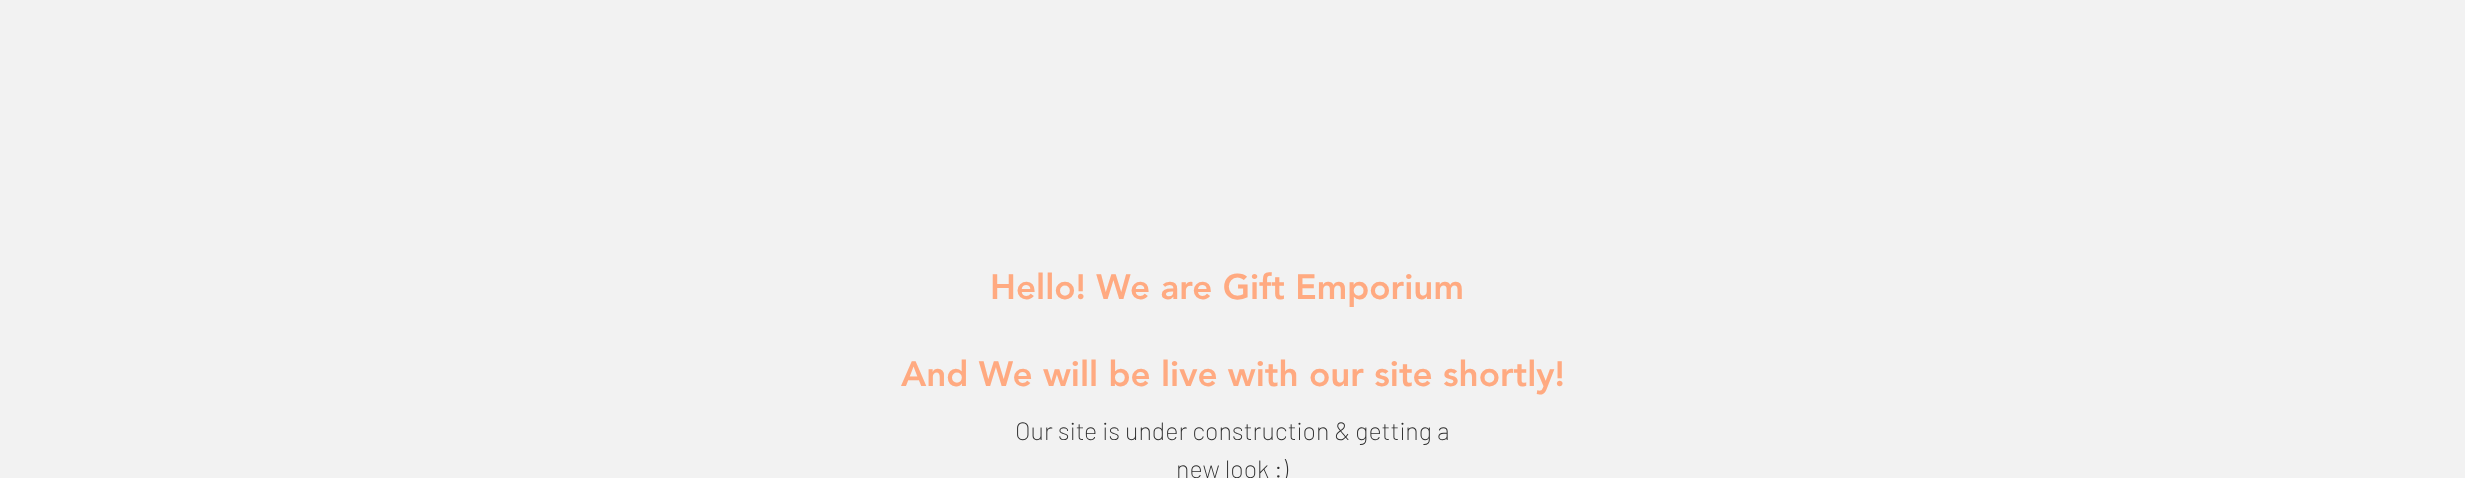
<svg xmlns="http://www.w3.org/2000/svg" width="2465" height="478" viewBox="0 0 2465 478">
  <rect width="100%" height="100%" fill="#f2f2f2"/>
  <g font-family="'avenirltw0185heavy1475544'" font-size="35" font-weight="900" fill="#ffaa81">
    <text x="990" y="299">Hello! We are Gift Emporium</text>
    <text x="901" y="386">And We will be live with our site shortly!</text>
  </g>
  <g font-family="Barlow" font-size="25" font-weight="200" fill="#2e2e2e">
    <text x="1015" y="440">Our site is under construction &amp; getting a</text>
    <text x="1176" y="478">new look :)</text>
  </g>
</svg>
